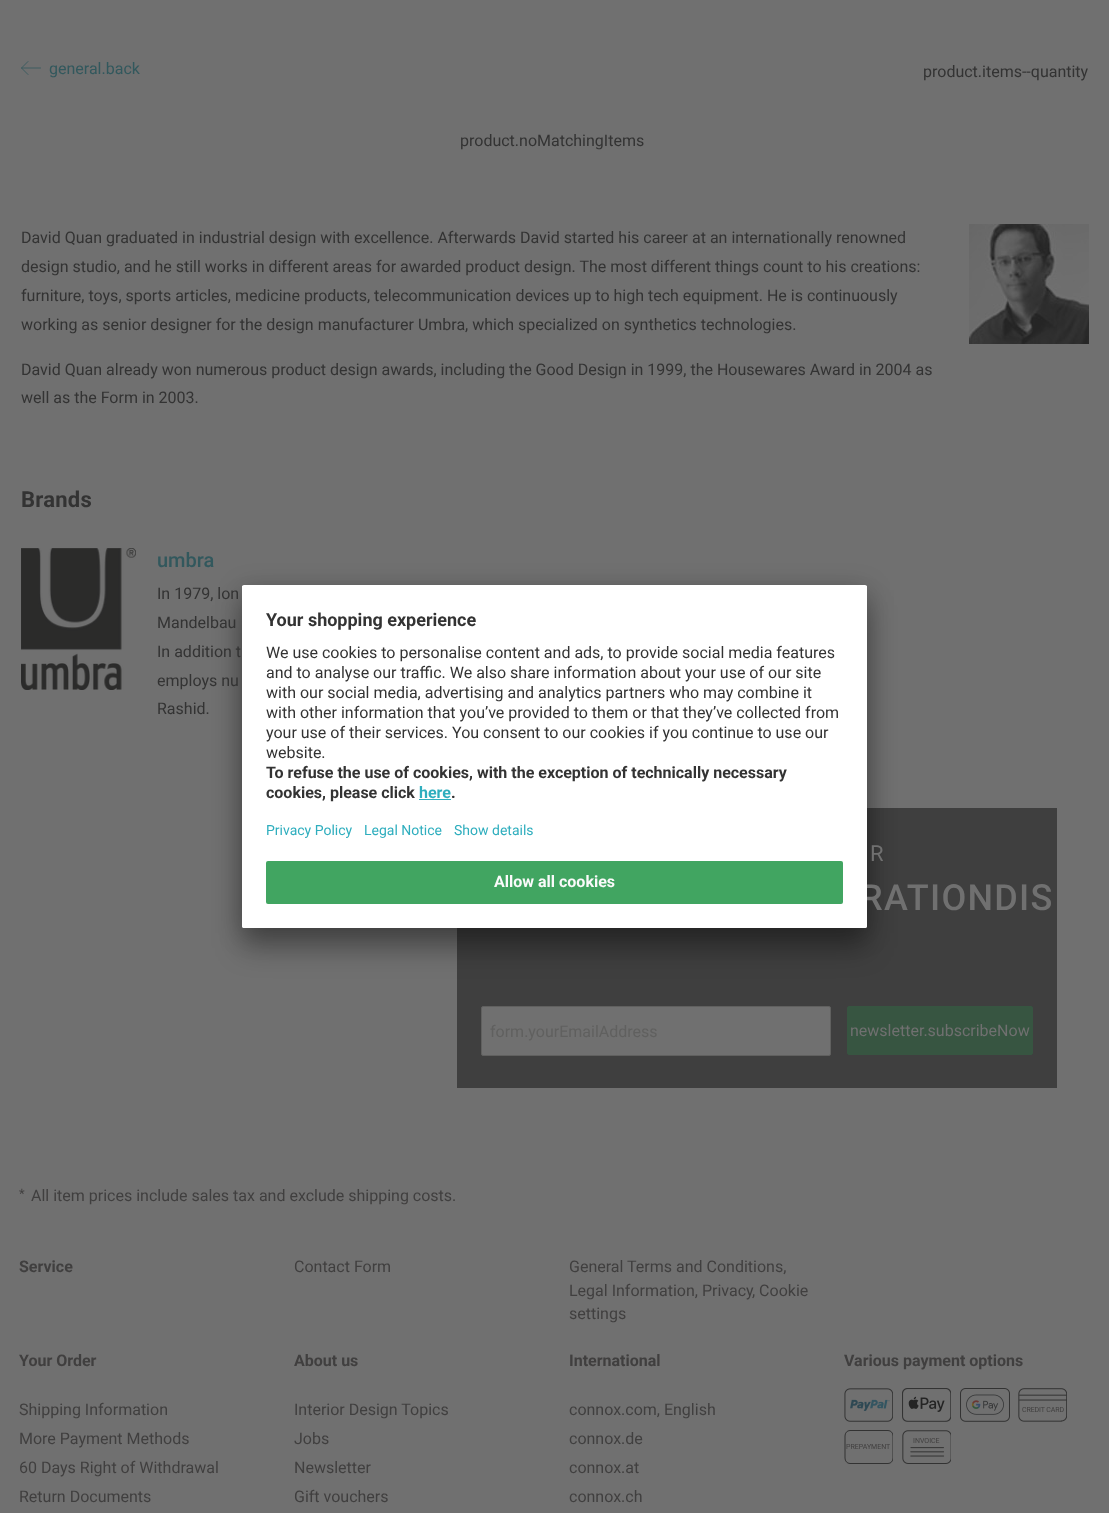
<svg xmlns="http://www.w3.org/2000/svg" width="1109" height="1513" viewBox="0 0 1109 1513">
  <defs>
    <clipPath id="clip1"><path d="M844 1430h49v34H844z"/></clipPath>
  </defs>
  <rect width="100%" height="100%" fill="#707070"/>
  <path d="M21.5 68H40.5M28 74.5L21.5 68L28 61.5" fill="none" stroke="#32585d" stroke-width="0.8" stroke-linecap="round"/>
  <image x="969" y="224" width="120" height="120" href="img/1.png"/>
  <image x="21" y="548" width="115" height="142" href="img/2.png"/>
  <path d="M457 808h600v280H457z" fill="#3f3f3f"/>
  <rect x="481.5" y="1006.5" width="349" height="49" rx="1.5" fill="#707070" stroke="#60605f"/>
  <rect x="847.5" y="1006.5" width="185" height="48" rx="1.5" fill="#375541" stroke="#375541"/>
  <image x="844" y="1388" width="49" height="34" href="img/3.png"/>
  <image x="902" y="1388" width="49" height="34" href="img/4.png"/>
  <image x="960" y="1388" width="50" height="34" href="img/5.png"/>
  <image x="1018" y="1388" width="49" height="34" href="img/6.png"/>
  <image x="902" y="1430" width="49" height="34" href="img/7.png"/>
  <g clip-path="url(#clip1)">
    <path d="M888 1463.5H850C847 1463.5 845 1461 845 1458V1436C845 1433 847 1430.5 850 1430.5H888C891 1430.5 893 1433 893 1436V1458C893 1461 891 1463.5 888 1463.5Z" fill="none" stroke="#333"/>
  </g>
  <rect x="242" y="605" width="625" height="343" rx="2" fill="#0000004d" filter="blur(14px)"/>
  <rect x="242" y="590" width="625" height="343" rx="2" fill="#00000038" filter="blur(13px)"/>
  <text x="49" y="74" font-family="Roboto" font-size="16" fill="#32585d">general.back</text>
  <g font-family="Roboto" font-size="16" fill="#333">
    <text x="923" y="77">product.items--quantity</text>
    <text x="460" y="146">product.noMatchingItems</text>
    <text x="21" y="243">David Quan graduated in industrial design with excellence. Afterwards David started his career at an internationally renowned</text>
    <text x="21" y="272">design studio, and he still works in different areas for awarded product design. The most different things count to his creations:</text>
    <text x="21" y="301">furniture, toys, sports articles, medicine products, telecommunication devices up to high tech equipment. He is continuously</text>
    <text x="21" y="330">working as senior designer for the design manufacturer Umbra, which specialized on synthetics technologies.</text>
    <text x="21" y="375">David Quan already won numerous product design awards, including the Good Design in 1999, the Housewares Award in 2004 as</text>
    <text x="21" y="403">well as the Form in 2003.</text>
  </g>
  <text x="21" y="507" font-family="Roboto" font-size="22" font-weight="bold" letter-spacing="0.25" fill="#333">Brands</text>
  <text x="157" y="567" font-family="Roboto" font-size="20" font-weight="500" fill="#32585d">umbra</text>
  <g font-family="Roboto" font-size="16" fill="#333">
    <text x="157" y="599">In 1979, lon</text>
    <text x="157" y="628">Mandelbau</text>
    <text x="157" y="657">In addition t</text>
    <text x="157" y="686">employs nu</text>
    <text x="157" y="714">Rashid.</text>
  </g>
  <text x="870" y="861" font-family="Roboto" font-size="22" letter-spacing="1.25" fill="#707070">R</text>
  <text x="860" y="910" font-family="Roboto" font-size="36" font-weight="500" letter-spacing="1.25" fill="#707070">RATIONDIS</text>
  <text x="490" y="1037" font-family="Roboto" font-size="16" fill="#60605f">form.yourEmailAddress</text>
  <text x="850" y="1036" font-family="Roboto" font-size="16" fill="#707070">newsletter.subscribeNow</text>
  <text x="19" y="1198" font-family="Roboto" font-size="13" fill="#403f3f">*</text>
  <text x="31" y="1201" font-family="Roboto" font-size="16" fill="#403f3f">All item prices include sales tax and exclude shipping costs.</text>
  <text x="19" y="1272" font-family="Roboto" font-size="16" font-weight="bold" fill="#403f3f">Service</text>
  <g font-family="Roboto" font-size="16" fill="#403f3f">
    <text x="294" y="1272">Contact Form</text>
    <text x="569" y="1272">General Terms and Conditions,</text>
    <text x="569" y="1296">Legal Information, Privacy</text>
    <text x="752" y="1296">, Cookie</text>
    <text x="569" y="1319">settings</text>
  </g>
  <text x="19" y="1366" font-family="Roboto" font-size="16" font-weight="bold" fill="#403f3f">Your Order</text>
  <g font-family="Roboto" font-size="16" fill="#403f3f">
    <text x="19" y="1415">Shipping Information</text>
    <text x="19" y="1444">More Payment Methods</text>
    <text x="19" y="1473">60 Days Right of Withdrawal</text>
    <text x="19" y="1502">Return Documents</text>
  </g>
  <text x="294" y="1366" font-family="Roboto" font-size="16" font-weight="bold" fill="#403f3f">About us</text>
  <g font-family="Roboto" font-size="16" fill="#403f3f">
    <text x="294" y="1415">Interior Design Topics</text>
    <text x="294" y="1444">Jobs</text>
    <text x="294" y="1473">Newsletter</text>
    <text x="294" y="1502">Gift vouchers</text>
  </g>
  <text x="569" y="1366" font-family="Roboto" font-size="16" font-weight="bold" fill="#403f3f">International</text>
  <g font-family="Roboto" font-size="16" fill="#403f3f">
    <text x="569" y="1415">connox.com, English</text>
    <text x="569" y="1444">connox.de</text>
    <text x="569" y="1473">connox.at</text>
    <text x="569" y="1502">connox.ch</text>
  </g>
  <text x="844" y="1366" font-family="Roboto" font-size="16" font-weight="bold" fill="#403f3f">Various payment options</text>
  <text x="1022" y="1412" font-family="Roboto" font-size="7" letter-spacing="-0.1" fill="#403f3f">CREDIT CARD</text>
  <g font-family="Roboto" font-size="7" fill="#403f3f">
    <text x="913" y="1443">INVOICE</text>
    <text x="846" y="1449">PREPAYMENT</text>
  </g>
  <rect x="242" y="585" width="625" height="343" rx="2" fill="#fff"/>
  <path d="M242 586h625v1H242z" fill="#fff"/>
  <text x="266" y="626" font-family="Roboto" font-size="18" font-weight="bold" fill="#333">Your shopping experience</text>
  <g font-family="Roboto" font-size="16" fill="#333">
    <text x="266" y="658">We use cookies to personalise content and ads, to provide social media features</text>
    <text x="266" y="678">and to analyse our traffic. We also share information about your use of our site</text>
    <text x="266" y="698">with our social media, advertising and analytics partners who may combine it</text>
    <text x="266" y="718">with other information that you’ve provided to them or that they’ve collected from</text>
    <text x="266" y="738">your use of their services. You consent to our cookies if you continue to use our</text>
    <text x="266" y="758">website.</text>
  </g>
  <g font-family="Roboto" font-size="16" font-weight="bold" fill="#333">
    <text x="266" y="778">To refuse the use of cookies, with the exception of technically necessary</text>
    <text x="266" y="798">cookies, please click</text>
  </g>
  <text x="419" y="798" font-family="Roboto" font-size="16" font-weight="bold" fill="#2faebe">here</text>
  <path d="M419 799h32v1H419z" fill="#2faebe"/>
  <text x="451" y="798" font-family="Roboto" font-size="16" font-weight="bold" fill="#333">.</text>
  <g font-family="Roboto" font-size="14" fill="#2faebe">
    <text x="266" y="835">Privacy Policy</text>
    <text x="364" y="835">Legal Notice</text>
    <text x="454" y="835">Show details</text>
  </g>
  <path d="M242 853H867V926C867 927 866 928 865 928H244C243 928 242 927 242 926Z" fill="#fff"/>
  <rect x="266" y="861" width="577" height="43" rx="2" fill="#41a561"/>
  <text x="494" y="887" font-family="Roboto" font-size="16" font-weight="bold" fill="#fafafa">Allow all cookies</text>
</svg>
